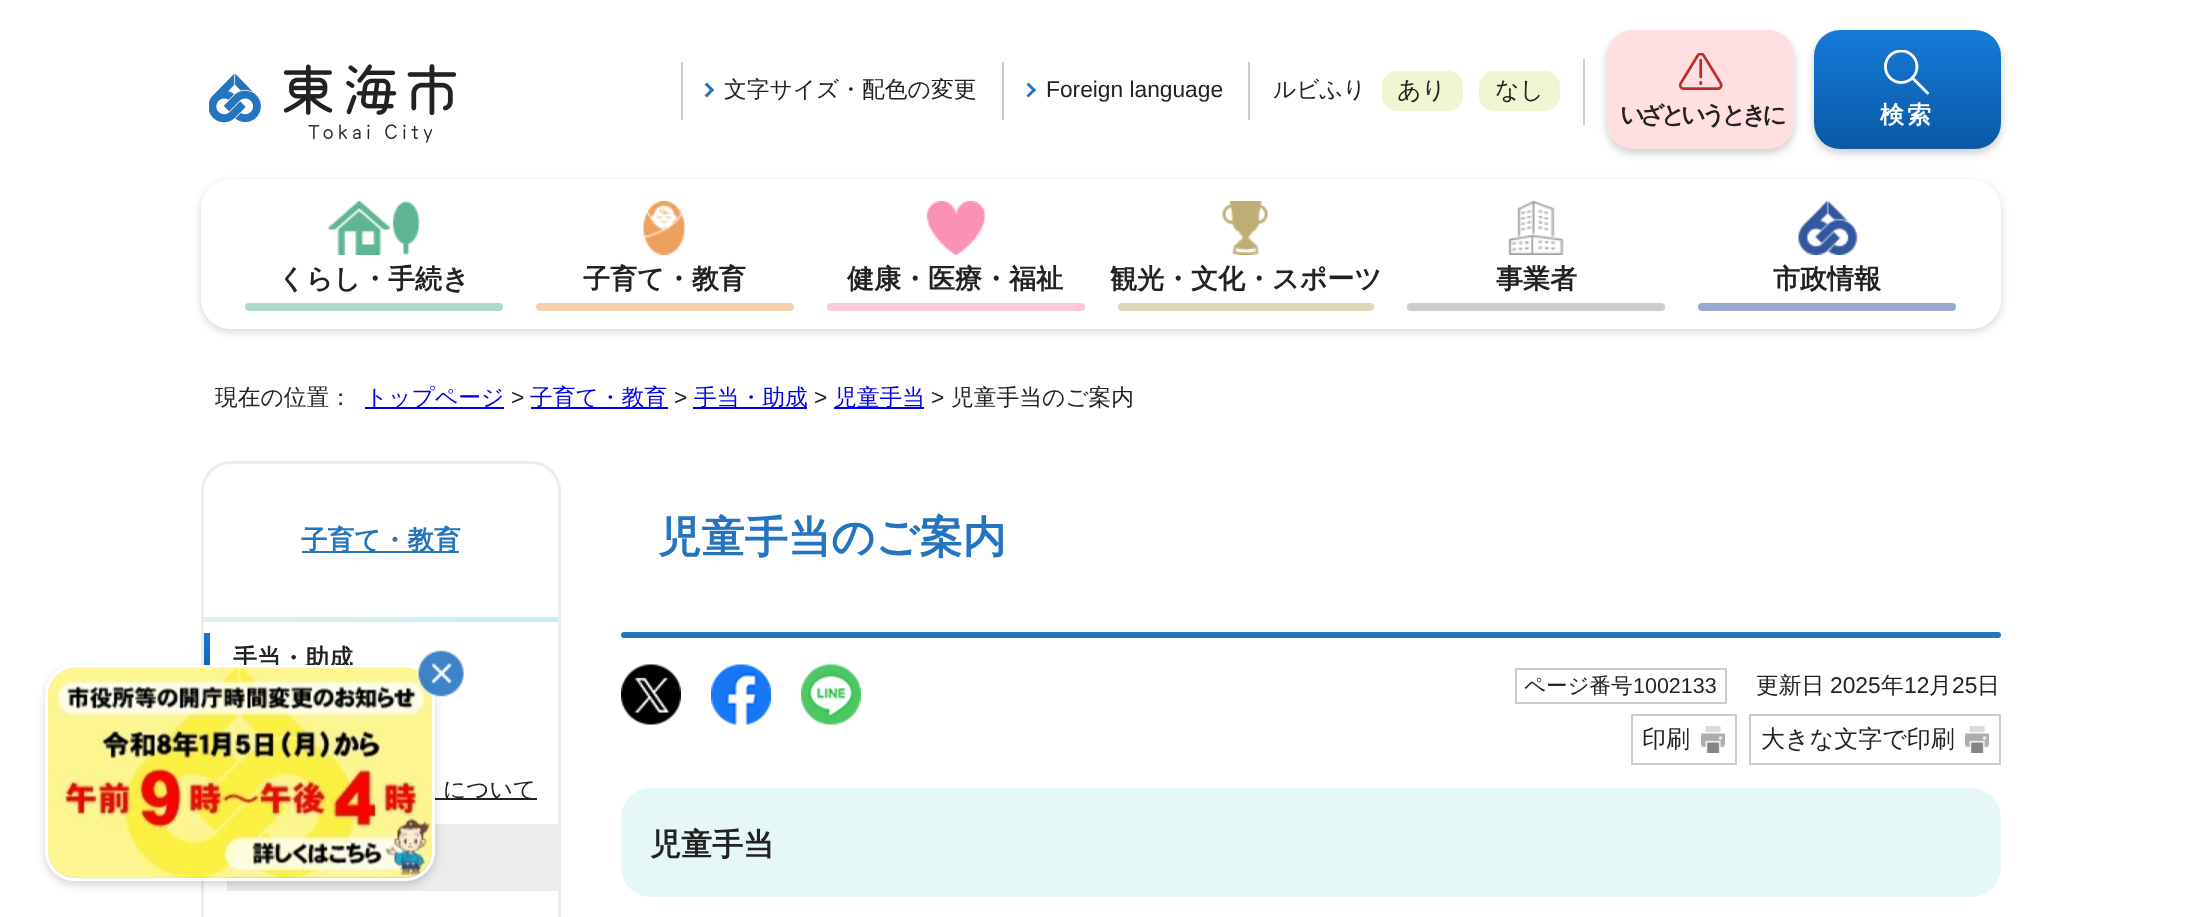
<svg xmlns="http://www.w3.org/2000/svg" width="2200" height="917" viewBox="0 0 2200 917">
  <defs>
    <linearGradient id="g1" gradientUnits="userSpaceOnUse" x1="1907" y1="30" x2="1907" y2="149"><stop offset="0" stop-color="#167ad8"/><stop offset="1" stop-color="#095aa7"/></linearGradient>
    <clipPath id="clip1"><path d="M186 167H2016V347H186ZM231 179H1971C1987.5 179 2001 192.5 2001 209V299C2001 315.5 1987.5 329 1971 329H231C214.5 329 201 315.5 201 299V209C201 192.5 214.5 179 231 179Z" clip-rule="evenodd"/></clipPath>
    <linearGradient id="g2" gradientUnits="userSpaceOnUse" x1="204" y1="619" x2="558" y2="619"><stop offset="0" stop-color="#e0f1e1"/><stop offset="1" stop-color="#c1eef9"/></linearGradient>
    <linearGradient id="g3" gradientUnits="userSpaceOnUse" x1="207" y1="633" x2="207" y2="684"><stop offset="0" stop-color="#167ad8"/><stop offset="1" stop-color="#095aa7"/></linearGradient>
  </defs>
  <rect width="100%" height="100%" fill="#fff"/>
  <image x="209" y="64" width="248" height="79" href="img/1.png"/>
  <path d="M1002 62h2v58H1002z" fill="#ccc"/>
  <path d="M681 62h2v58H681z" fill="#ccc"/>
  <path d="M714 90L707 97.5L704.5 95.5L712 88Z" fill="#2474c0"/>
  <path d="M714 90L712 92L704.5 84.5L707 82.5Z" fill="#2474c0"/>
  <path d="M1248 62h2v58H1248z" fill="#ccc"/>
  <path d="M1036 90L1028.5 97.5L1026.5 95.5L1034 88Z" fill="#2474c0"/>
  <path d="M1036 90L1034 92L1026.5 84.5L1028.5 82.5Z" fill="#2474c0"/>
  <path d="M1583 59h2v66H1583z" fill="#ccc"/>
  <rect x="1382" y="71" width="81" height="40" rx="15" fill="#eef6d2"/>
  <rect x="1479" y="71" width="81" height="40" rx="15" fill="#eef6d2"/>
  <rect x="1607" y="35" width="187" height="118" rx="26" fill="#00000033" filter="blur(4.5px)"/>
  <rect x="1607" y="30" width="187" height="119" rx="26" fill="#ffdfdf"/>
  <image x="1679" y="53" width="44" height="37" href="img/2.png"/>
  <rect x="1814" y="35" width="187" height="118" rx="26" fill="#00000033" filter="blur(4.5px)"/>
  <rect x="1814" y="30" width="187" height="119" rx="26" fill="url(#g1)"/>
  <image x="1884" y="50" width="45" height="45" href="img/3.png"/>
  <g clip-path="url(#clip1)">
    <rect x="201" y="182" width="1800" height="150" rx="30" fill="#00000029" filter="blur(4.5px)"/>
  </g>
  <image x="328" y="201" width="92" height="54" href="img/4.png"/>
  <rect x="245" y="303" width="258" height="8" rx="4" fill="#aedac8"/>
  <image x="643" y="201" width="43" height="54" href="img/5.png"/>
  <rect x="536" y="303" width="258" height="8" rx="4" fill="#f6d0ae"/>
  <image x="926" y="201" width="60" height="54" href="img/6.png"/>
  <rect x="827" y="303" width="258" height="8" rx="4" fill="#fdc8d9"/>
  <image x="1222" y="201" width="46" height="54" href="img/7.png"/>
  <rect x="1118" y="303" width="256" height="8" rx="4" fill="#ded6b9"/>
  <image x="1508" y="201" width="56" height="54" href="img/8.png"/>
  <rect x="1407" y="303" width="258" height="8" rx="4" fill="#cdcdcd"/>
  <image x="1798" y="201" width="60" height="54" href="img/9.png"/>
  <rect x="1698" y="303" width="258" height="8" rx="4" fill="#98aacf"/>
  <path d="M365 407h139v2H365z" fill="#00e"/>
  <path d="M531 407h137v2H531z" fill="#00e"/>
  <path d="M693 407h114v2H693z" fill="#00e"/>
  <path d="M834 407h90v2H834z" fill="#00e"/>
  <rect x="202.5" y="462.5" width="357" height="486" rx="28.5" fill="none" stroke="#ececec" stroke-width="3"/>
  <path d="M302 551h157v2H302z" fill="#2474c0"/>
  <path d="M204 617h354v5H204z" fill="url(#g2)"/>
  <path d="M204 633h6v32H204z" fill="url(#g3)"/>
  <path d="M435 798h102v2H435z" fill="#222"/>
  <path d="M227 824h331v67H227z" fill="#ececec"/>
  <rect x="621" y="632" width="1380" height="6" rx="3" fill="#2474c0"/>
  <image x="621" y="664" width="60" height="61" href="img/10.png"/>
  <image x="711" y="664" width="60" height="61" href="img/11.png"/>
  <image x="801" y="664" width="60" height="61" href="img/12.png"/>
  <path d="M1516 669h210v34H1516z" fill="none" stroke="#ccc" stroke-width="2"/>
  <path d="M1632 715h104v49H1632z" fill="none" stroke="#ccc" stroke-width="2"/>
  <image x="1701" y="726" width="24" height="27" href="img/13.png"/>
  <path d="M1750 715h250v49H1750z" fill="none" stroke="#ccc" stroke-width="2"/>
  <image x="1965" y="726" width="24" height="27" href="img/14.png"/>
  <rect x="621" y="788" width="1380" height="109" rx="30" fill="#e6f7f7"/>
  <rect x="45" y="669" width="390" height="216" rx="30" fill="#00000029" filter="blur(4.5px)"/>
  <text x="724" y="97" font-family="WenQuanYi Zen Hei" font-size="22.75" font-weight="500" fill="#222">文字サイズ・配色の変更</text>
  <text x="1046" y="97" font-family="Liberation Sans" font-size="22.75" fill="#222">Foreign language</text>
  <text x="1273" y="97" font-family="WenQuanYi Zen Hei" font-size="22.75" font-weight="500" fill="#222">ルビふり</text>
  <g font-family="WenQuanYi Zen Hei" font-size="24" font-weight="500" fill="#222">
    <text x="1397" y="98">あり</text>
    <text x="1495" y="98">なし</text>
  </g>
  <text x="1620" y="123" font-family="WenQuanYi Zen Hei" font-size="24" font-weight="bold" letter-spacing="-4.25" fill="#222">いざというときに</text>
  <text x="1880" y="123" font-family="WenQuanYi Zen Hei" font-size="24" font-weight="bold" letter-spacing="3" fill="#fff">検索</text>
  <g font-family="WenQuanYi Zen Hei" font-size="27" font-weight="bold" fill="#222">
    <text x="278" y="288">くらし・手続き</text>
    <text x="583" y="288">子育て・教育</text>
    <text x="847" y="288">健康・医療・福祉</text>
    <text x="1110" y="288">観光・文化・スポーツ</text>
    <text x="1496" y="288">事業者</text>
    <text x="1773" y="288">市政情報</text>
  </g>
  <text x="215" y="405" font-family="WenQuanYi Zen Hei" font-size="22.75" font-weight="500" fill="#222">現在の位置：</text>
  <text x="365" y="405" font-family="WenQuanYi Zen Hei" font-size="22.75" font-weight="500" fill="#00e">トップページ</text>
  <text x="511" y="405" font-family="Liberation Sans" font-size="22.75" fill="#222">&gt;</text>
  <text x="530" y="405" font-family="WenQuanYi Zen Hei" font-size="22.75" font-weight="500" fill="#00e">子育て・教育</text>
  <text x="674" y="405" font-family="Liberation Sans" font-size="22.75" fill="#222">&gt;</text>
  <text x="694" y="405" font-family="WenQuanYi Zen Hei" font-size="22.75" font-weight="500" fill="#00e">手当・助成</text>
  <text x="814" y="405" font-family="Liberation Sans" font-size="22.75" fill="#222">&gt;</text>
  <text x="834" y="405" font-family="WenQuanYi Zen Hei" font-size="22.75" font-weight="500" fill="#00e">児童手当</text>
  <text x="931" y="405" font-family="Liberation Sans" font-size="22.75" fill="#222">&gt;</text>
  <text x="951" y="405" font-family="WenQuanYi Zen Hei" font-size="22.75" font-weight="500" fill="#222">児童手当のご案内</text>
  <text x="301" y="549" font-family="WenQuanYi Zen Hei" font-size="26.5" font-weight="bold" fill="#2474c0">子育て・教育</text>
  <text x="233" y="666" font-family="WenQuanYi Zen Hei" font-size="24" font-weight="bold" fill="#222">手当・助成</text>
  <text x="443" y="797" font-family="WenQuanYi Zen Hei" font-size="22.75" font-weight="500" fill="#222">について</text>
  <text x="658" y="552" font-family="WenQuanYi Zen Hei" font-size="43.25" font-weight="bold" fill="#2474c0">児童手当のご案内</text>
  <text x="1524" y="693" font-family="WenQuanYi Zen Hei" font-size="21.5" font-weight="500" fill="#222">ページ番号</text>
  <text x="1633" y="693" font-family="Liberation Sans" font-size="21.5" fill="#222">1002133</text>
  <text x="1756" y="693" font-family="WenQuanYi Zen Hei" font-size="22.75" font-weight="500" fill="#222">更新日</text>
  <text x="1830" y="693" font-family="Liberation Sans" font-size="22.75" fill="#222">2025</text>
  <text x="1881" y="693" font-family="WenQuanYi Zen Hei" font-size="22.75" font-weight="500" fill="#222">年</text>
  <text x="1904" y="693" font-family="Liberation Sans" font-size="22.75" fill="#222">12</text>
  <text x="1929" y="693" font-family="WenQuanYi Zen Hei" font-size="22.75" font-weight="500" fill="#222">月</text>
  <text x="1952" y="693" font-family="Liberation Sans" font-size="22.75" fill="#222">25</text>
  <text x="1977" y="693" font-family="WenQuanYi Zen Hei" font-size="22.75" font-weight="500" fill="#222">日</text>
  <g font-family="WenQuanYi Zen Hei" font-size="24" font-weight="500" fill="#222">
    <text x="1642" y="747">印刷</text>
    <text x="1761" y="747">大きな文字で印刷</text>
  </g>
  <text x="650" y="855" font-family="WenQuanYi Zen Hei" font-size="31" font-weight="bold" fill="#222">児童手当</text>
  <rect x="46.5" y="666.5" width="387" height="213" rx="28.5" fill="none" stroke="#fff" stroke-width="3"/>
  <image x="48" y="667" width="384" height="211" href="img/16.png"/>
  <image x="417" y="649" width="48" height="49" href="img/15.png"/>
</svg>
